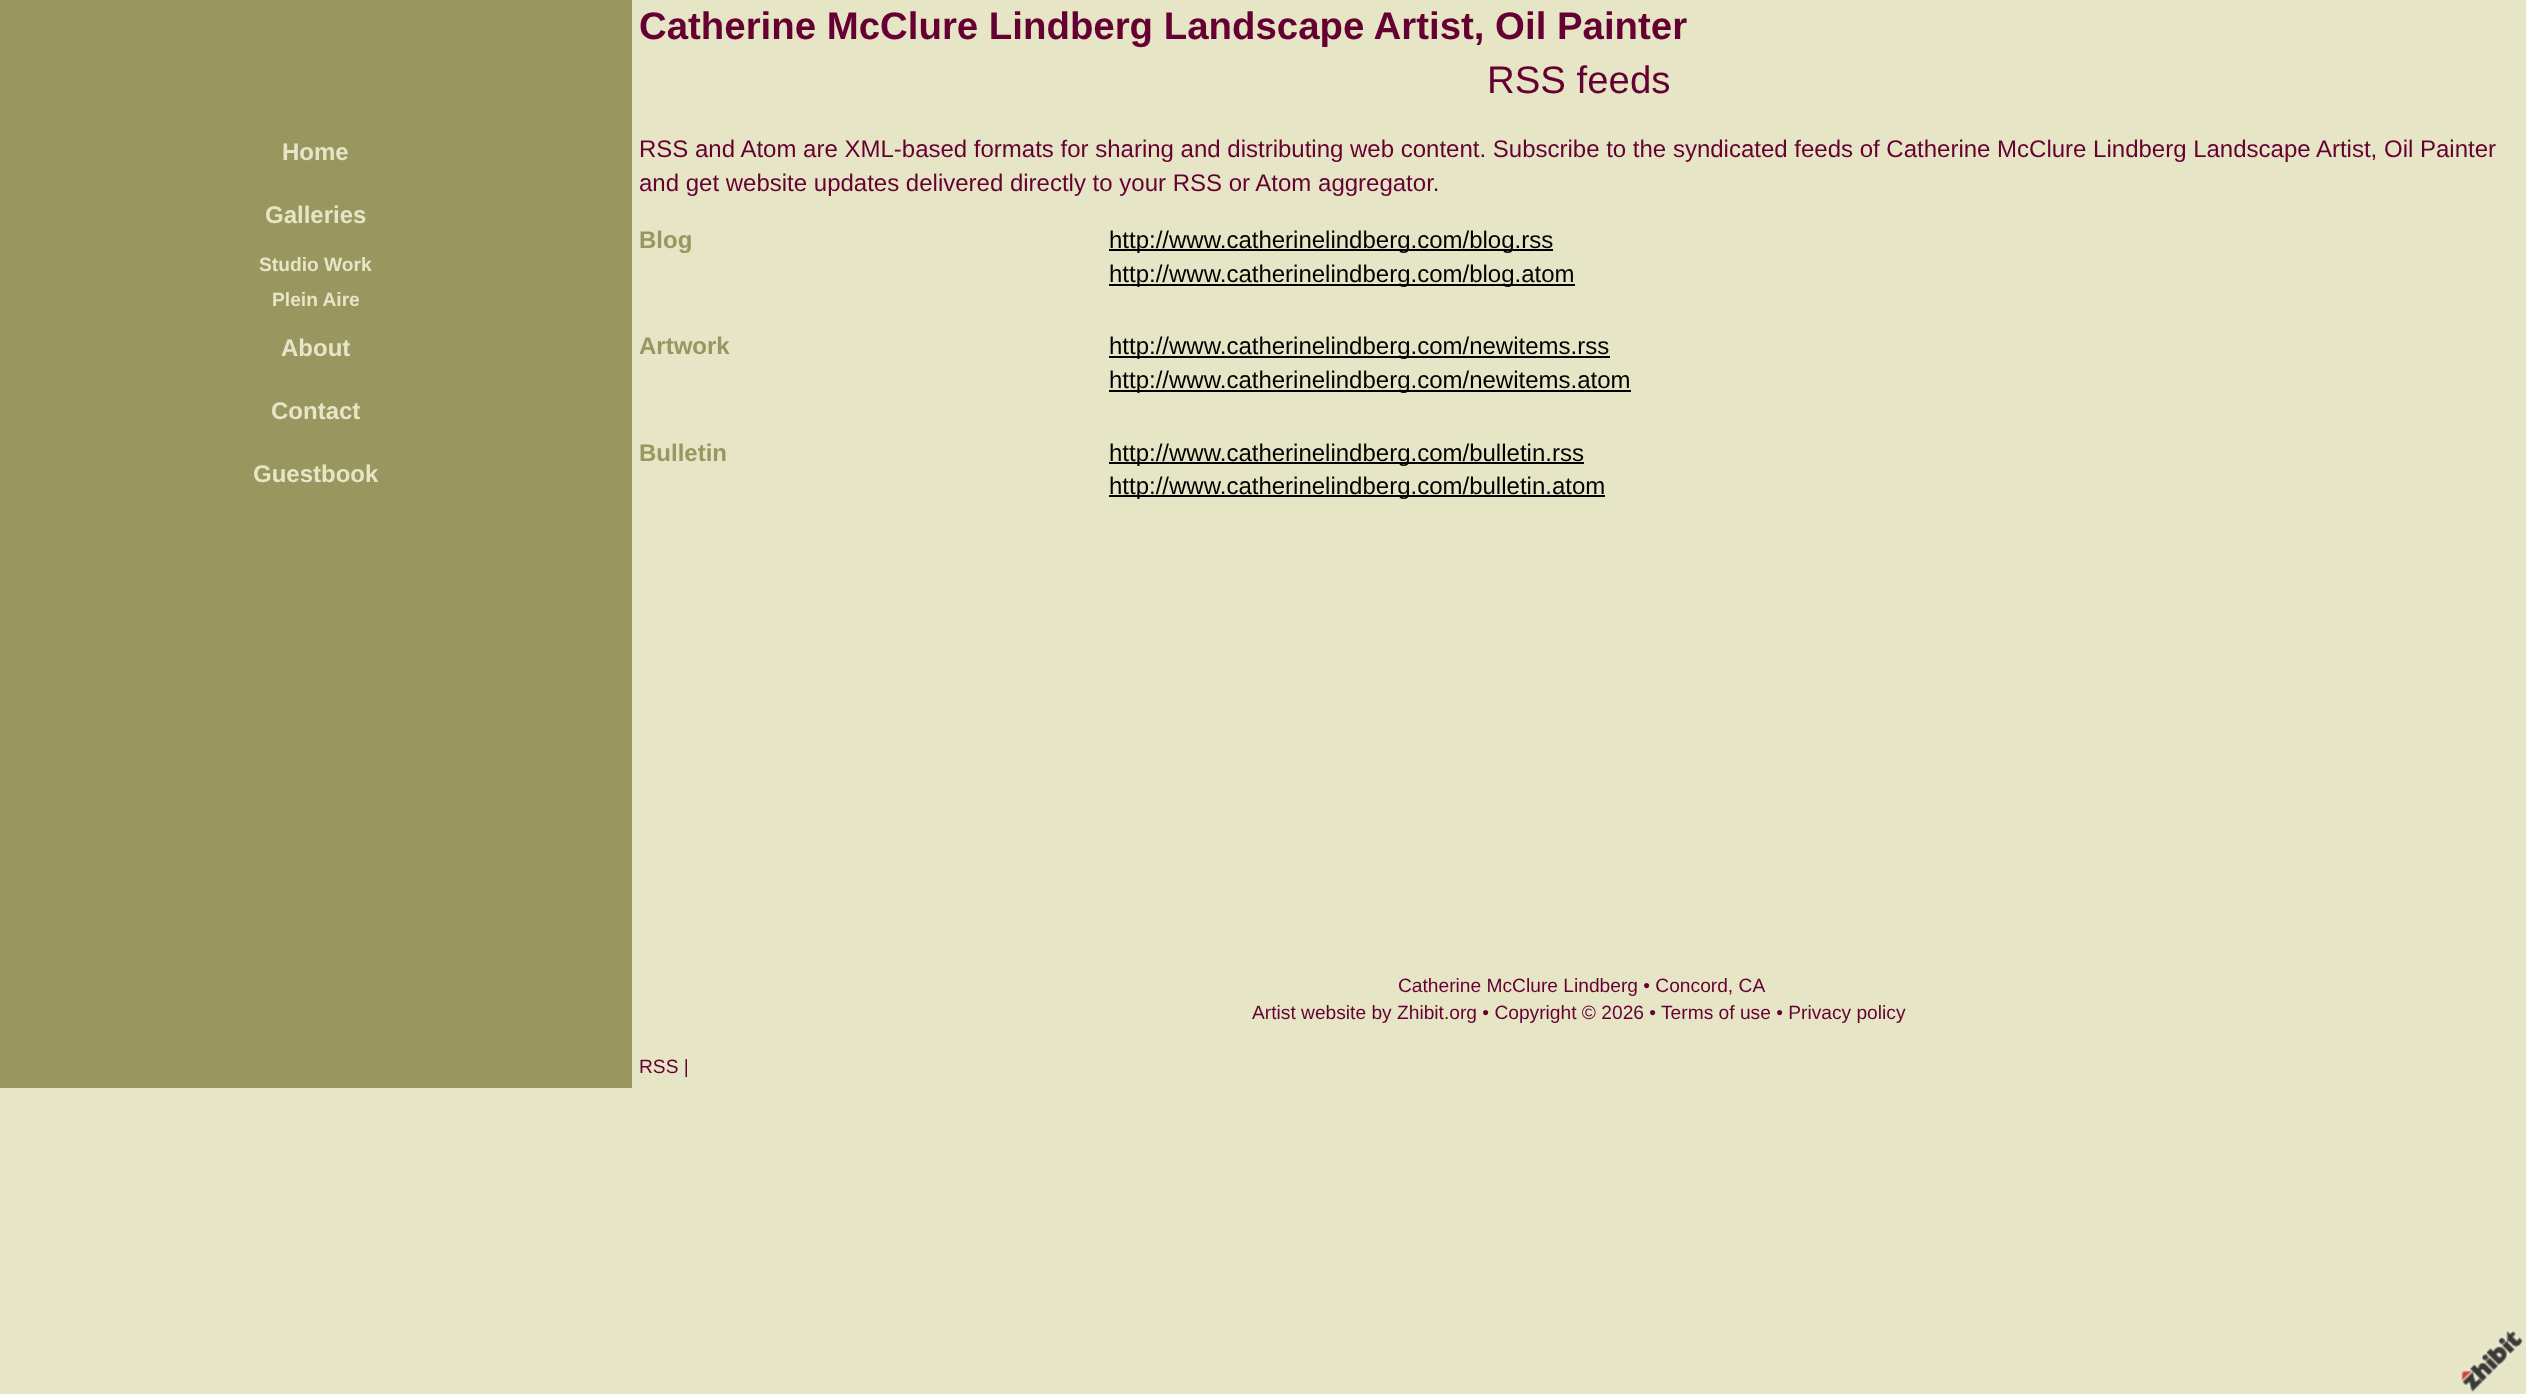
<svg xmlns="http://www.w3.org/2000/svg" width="2526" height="1394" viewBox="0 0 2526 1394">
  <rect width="100%" height="100%" fill="#e6e6c6"/>
  <path d="M0 0h632v1088H0z" fill="#999660"/>
  <path d="M1109 249h444v2H1109z" fill="#000"/>
  <path d="M1109 284h466v2H1109z" fill="#000"/>
  <path d="M1109 356h501v2H1109z" fill="#000"/>
  <path d="M1109 390h522v2H1109z" fill="#000"/>
  <path d="M1109 462h475v2H1109z" fill="#000"/>
  <path d="M1109 495h496v2H1109z" fill="#000"/>
  <image x="2460" y="1330" width="64" height="63" href="img/1.png"/>
  <g font-family="Liberation Sans" font-size="24" font-weight="bold" fill="#e6e6c6">
    <text x="282" y="160">Home</text>
    <text x="265" y="223">Galleries</text>
  </g>
  <g font-family="Liberation Sans" font-size="19.2" font-weight="bold" fill="#e6e6c6">
    <text x="259" y="271">Studio Work</text>
    <text x="272" y="306">Plein Aire</text>
  </g>
  <g font-family="Liberation Sans" font-size="24" font-weight="bold" fill="#e6e6c6">
    <text x="281" y="356">About</text>
    <text x="271" y="419">Contact</text>
    <text x="253" y="482">Guestbook</text>
  </g>
  <text x="639" y="39" font-family="Liberation Sans" font-size="38.4" font-weight="bold" fill="#603">Catherine McClure Lindberg Landscape Artist, Oil Painter</text>
  <text x="1487" y="93" font-family="Liberation Sans" font-size="38.4" fill="#603">RSS feeds</text>
  <g font-family="Liberation Sans" font-size="24" fill="#603">
    <text x="639" y="157">RSS and Atom are XML-based formats for sharing and distributing web content. Subscribe to the syndicated feeds of Catherine McClure Lindberg Landscape Artist, Oil Painter</text>
    <text x="639" y="191">and get website updates delivered directly to your RSS or Atom aggregator.</text>
  </g>
  <text x="639" y="248" font-family="Liberation Sans" font-size="24" font-weight="bold" fill="#999660">Blog</text>
  <g font-family="Liberation Sans" font-size="24" fill="#000">
    <text x="1109" y="248">http://www.catherinelindberg.com/blog.rss</text>
    <text x="1109" y="282">http://www.catherinelindberg.com/blog.atom</text>
  </g>
  <text x="639" y="354" font-family="Liberation Sans" font-size="24" font-weight="bold" fill="#999660">Artwork</text>
  <g font-family="Liberation Sans" font-size="24" fill="#000">
    <text x="1109" y="354">http://www.catherinelindberg.com/newitems.rss</text>
    <text x="1109" y="388">http://www.catherinelindberg.com/newitems.atom</text>
  </g>
  <text x="639" y="461" font-family="Liberation Sans" font-size="24" font-weight="bold" fill="#999660">Bulletin</text>
  <g font-family="Liberation Sans" font-size="24" fill="#000">
    <text x="1109" y="461">http://www.catherinelindberg.com/bulletin.rss</text>
    <text x="1109" y="494">http://www.catherinelindberg.com/bulletin.atom</text>
  </g>
  <g font-family="Liberation Sans" font-size="19.2" fill="#603">
    <text x="1398" y="992">Catherine McClure Lindberg • Concord, CA</text>
    <text x="1252" y="1019">Artist website by Zhibit.org • Copyright © 2026 •</text>
    <text x="1661" y="1019">Terms of use • Privacy policy</text>
    <text x="639" y="1073">RSS |</text>
  </g>
</svg>
